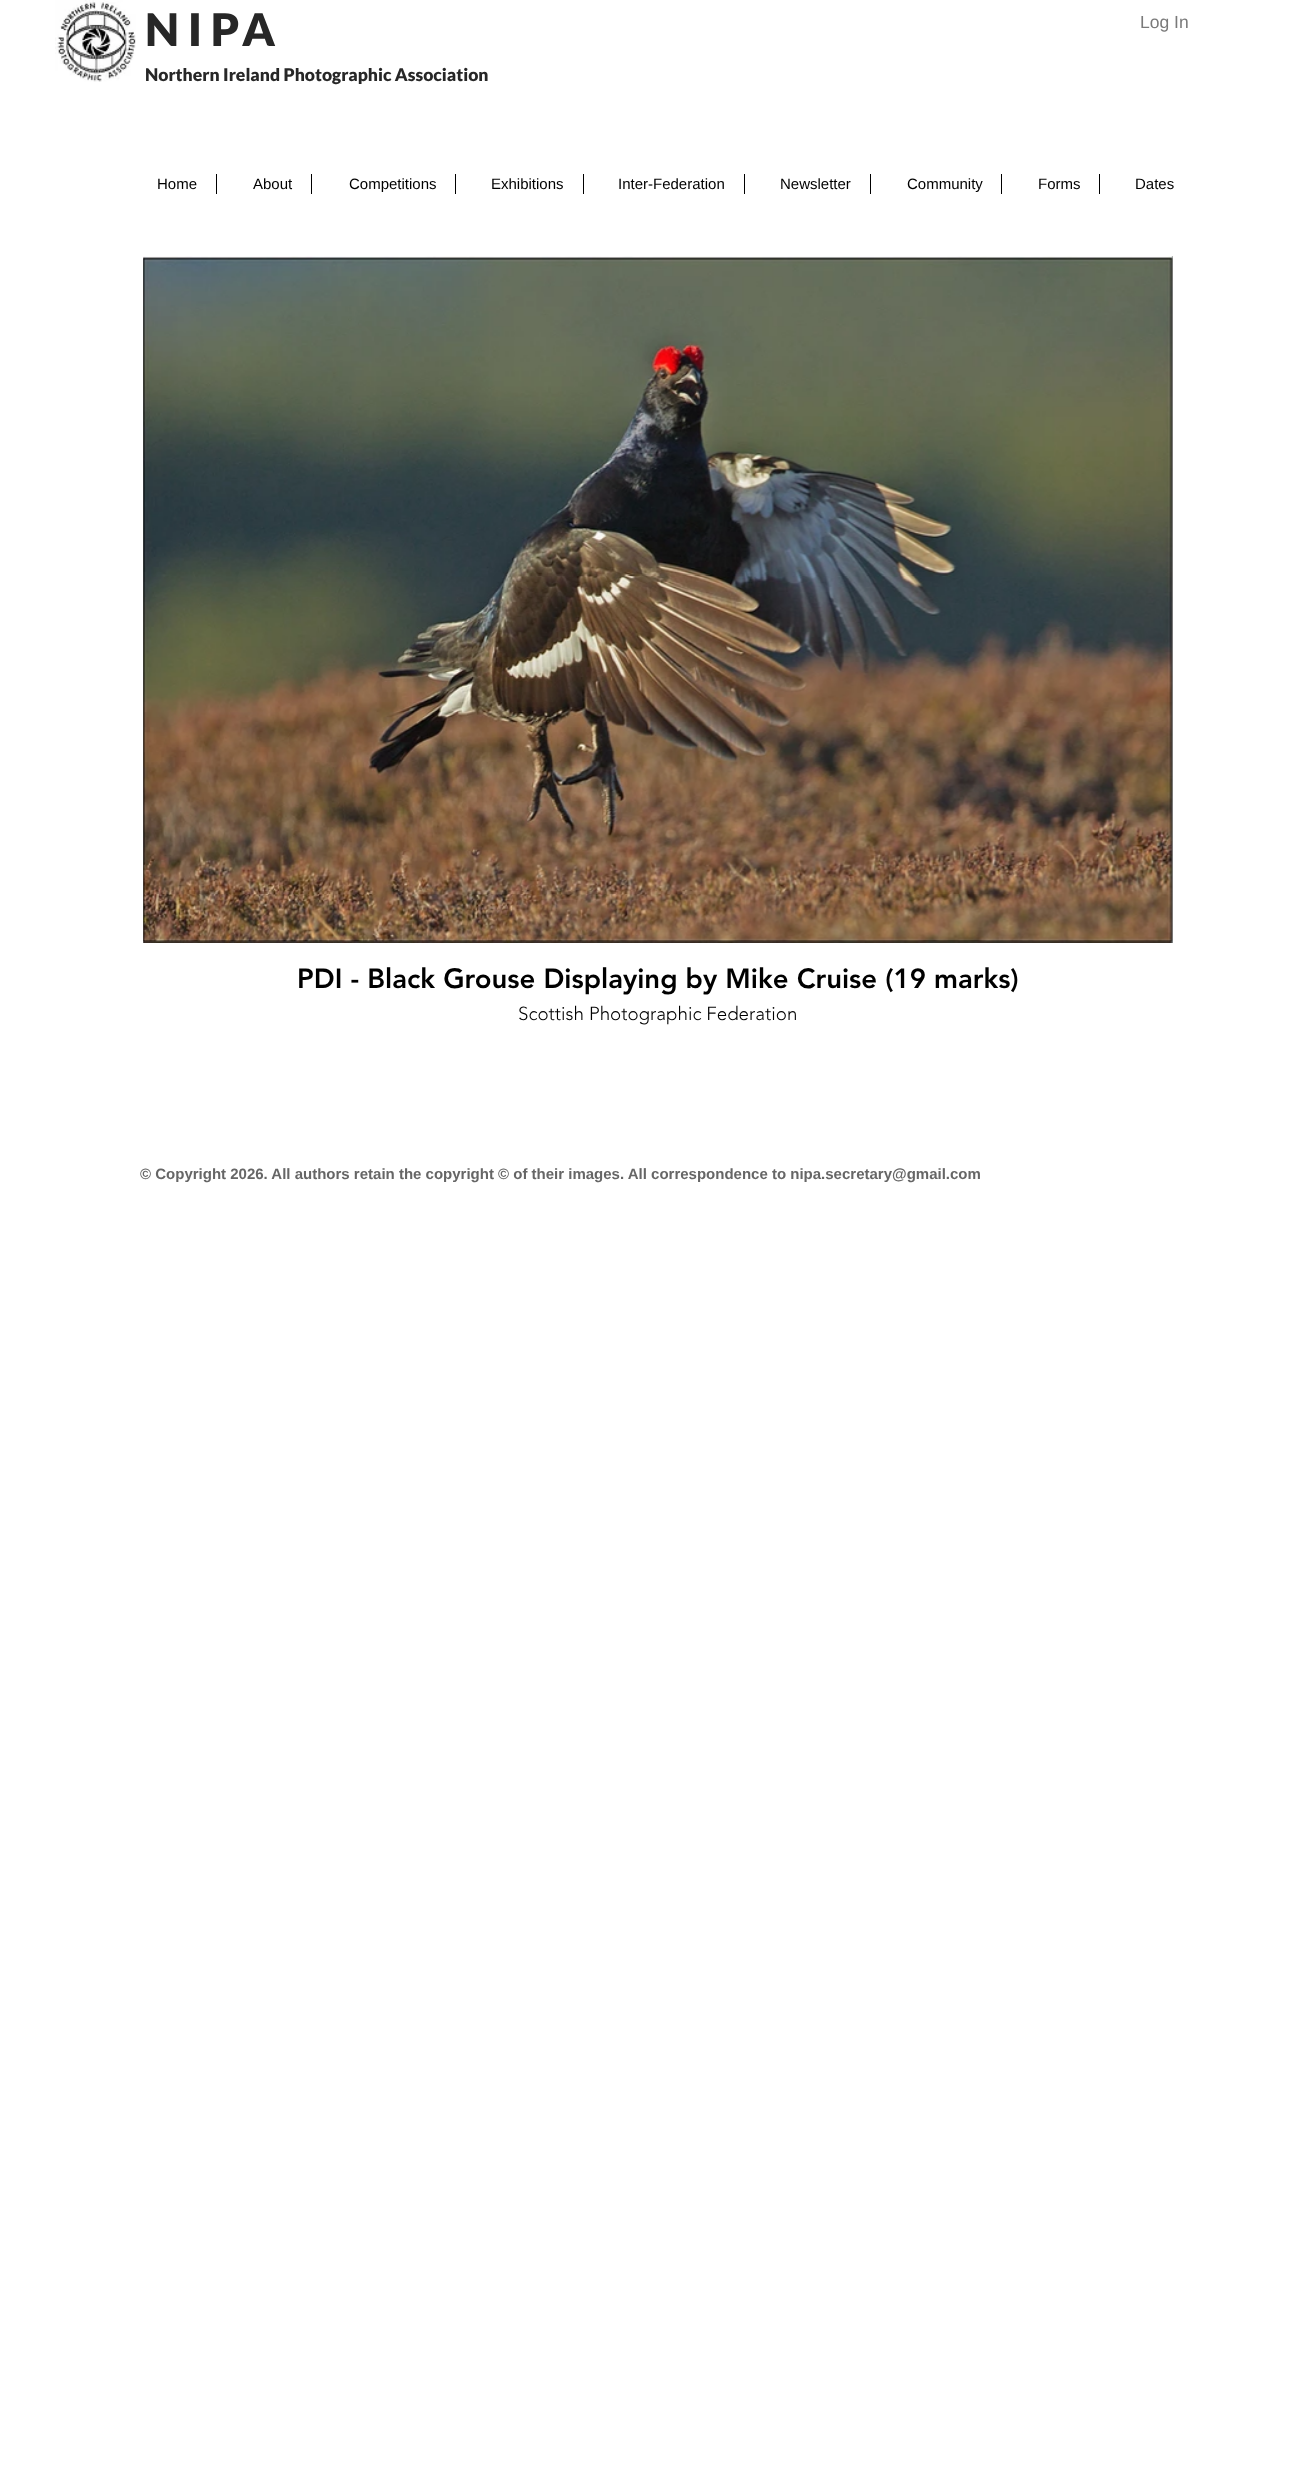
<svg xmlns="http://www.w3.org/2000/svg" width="1315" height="2469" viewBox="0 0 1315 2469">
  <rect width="100%" height="100%" fill="#fff"/>
  <image x="55" y="0" width="81" height="82" href="img/1.png"/>
  <path d="M216 174h1v20H216z" fill="#000"/>
  <path d="M311 174h1v20H311z" fill="#000"/>
  <path d="M455 174h1v20H455z" fill="#000"/>
  <path d="M583 174h1v20H583z" fill="#000"/>
  <path d="M744 174h1v20H744z" fill="#000"/>
  <path d="M870 174h1v20H870z" fill="#000"/>
  <path d="M1001 174h1v20H1001z" fill="#000"/>
  <path d="M1099 174h1v20H1099z" fill="#000"/>
  <path d="M1171 256h2v687H1171z" fill="#666"/>
  <image x="143" y="256" width="1030" height="687" href="img/2.png"/>
  <g font-family="Lato" font-size="45" font-weight="900" fill="#272727">
    <text x="145" y="46">N I P</text>
    <text x="242" y="46">A</text>
  </g>
  <text x="145" y="81" font-family="Lato" font-size="17.5" font-weight="900" fill="#272727">Northern Ireland Photographic Association</text>
  <text x="1140" y="28" font-family="Liberation Sans" font-size="17.5" fill="#7a7a7a">Log In</text>
  <g font-family="Liberation Sans" font-size="15" fill="#000">
    <text x="157" y="189">Home</text>
    <text x="253" y="189">About</text>
    <text x="349" y="189">Competitions</text>
    <text x="491" y="189">Exhibitions</text>
    <text x="618" y="189">Inter-Federation</text>
    <text x="780" y="189">Newsletter</text>
    <text x="907" y="189">Community</text>
    <text x="1038" y="189">Forms</text>
    <text x="1135" y="189">Dates</text>
  </g>
  <text x="297" y="988" font-family="'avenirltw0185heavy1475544'" font-size="27.5" font-weight="900" fill="#000">PDI - Black Grouse Displaying by Mike Cruise (19 marks)</text>
  <text x="518" y="1020" font-family="'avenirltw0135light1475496'" font-size="18.75" font-weight="300" fill="#000">Scottish Photographic Federation</text>
  <text x="140" y="1179" font-family="Liberation Sans" font-size="15" font-weight="bold" fill="#666">© Copyright 2026. All authors retain the copyright © of their images. All correspondence to nipa.secretary@gmail.com</text>
</svg>
